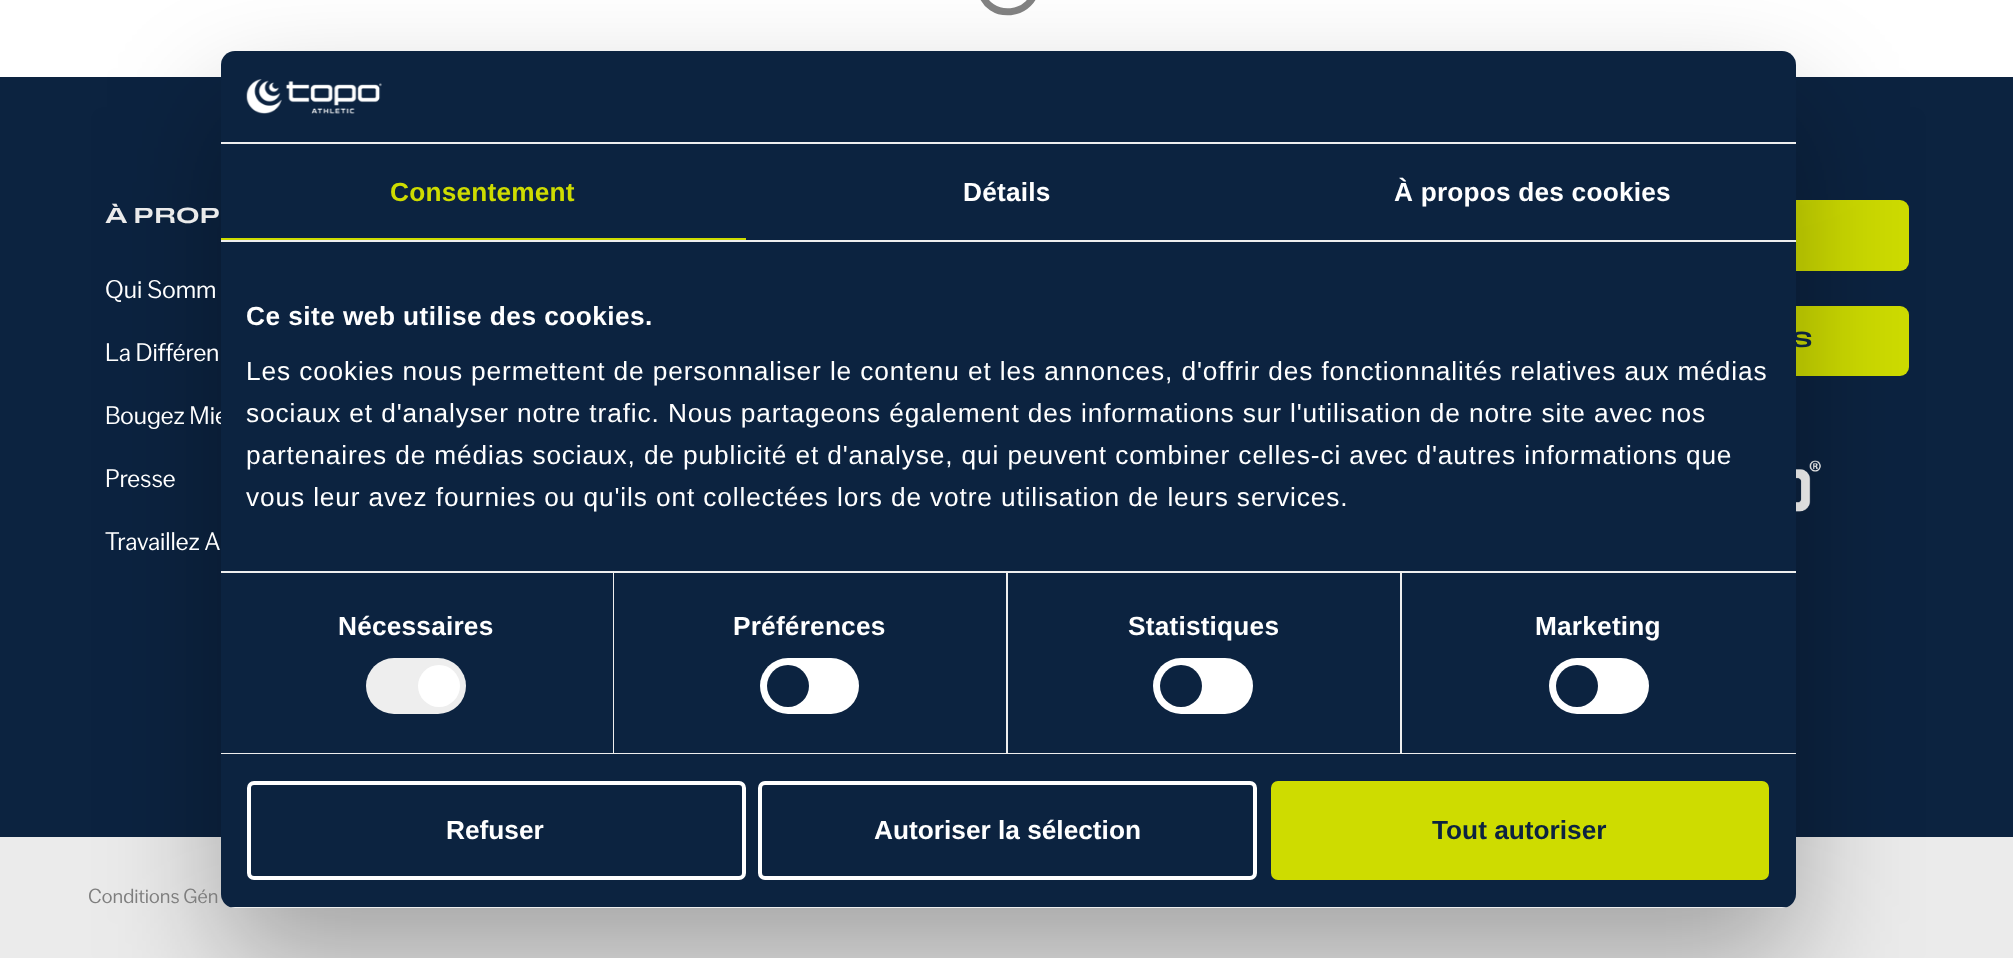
<svg xmlns="http://www.w3.org/2000/svg" width="2013" height="958" viewBox="0 0 2013 958">
  <defs>
    <clipPath id="clip1"><rect x="221" y="51" width="1575" height="857" rx="14"/></clipPath>
  </defs>
  <rect width="100%" height="100%" fill="#fff"/>
  <path d="M1028-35.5C1033-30.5 1036-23 1036-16C1036 17.5 987 22.5 980.5-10.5C978.5-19.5 981.5-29 988-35.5" fill="none" stroke="#838383" stroke-width="7"/>
  <path d="M0 77h2013v760H0z" fill="#0c2340"/>
  <rect x="1484" y="200" width="425" height="71" rx="9" fill="#cedc00"/>
  <rect x="1484" y="306" width="425" height="70" rx="9" fill="#cedc00"/>
  <image x="1796" y="460" width="25" height="52" href="img/2.png"/>
  <path d="M0 837h2013v121H0z" fill="#ebebeb"/>
  <rect x="221" y="107" width="1575" height="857" rx="14" fill="#0000004d" filter="blur(59.5px)"/>
  <text x="105" y="223" font-family="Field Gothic" font-size="22.75" font-weight="500" fill="#ebebeb">À PROP</text>
  <g font-family="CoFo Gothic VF" font-size="26.25" fill="#fff">
    <text x="105" y="298">Qui Somm</text>
    <text x="105" y="361">La Différen</text>
    <text x="105" y="424">Bougez Mie</text>
  </g>
  <rect x="221" y="51" width="1575" height="857" rx="14" fill="#0c2340"/>
  <rect x="1273" y="783" width="494" height="95" rx="5" fill="#cedc00" stroke="#cedc00" stroke-width="4"/>
  <text x="1432" y="839" font-family="Liberation Sans" font-size="26.25" font-weight="bold" fill="#0c2340">Tout autoriser</text>
  <rect x="760" y="783" width="495" height="95" rx="5" fill="none" stroke="#fff" stroke-width="4"/>
  <text x="874" y="839" font-family="Liberation Sans" font-size="26.25" font-weight="bold" fill="#fff">Autoriser la sélection</text>
  <rect x="249" y="783" width="495" height="95" rx="5" fill="none" stroke="#fff" stroke-width="4"/>
  <text x="446" y="839" font-family="Liberation Sans" font-size="26.25" font-weight="bold" fill="#fff">Refuser</text>
  <g clip-path="url(#clip1)">
    <path d="M230 907h1557v1H230z" fill="#eee"/>
  </g>
  <rect x="1549" y="658" width="100" height="56" rx="28" fill="#fff"/>
  <circle cx="1577" cy="686" r="21" fill="#0c2340"/>
  <rect x="1153" y="658" width="100" height="56" rx="28" fill="#fff"/>
  <circle cx="1181" cy="686" r="21" fill="#0c2340"/>
  <rect x="760" y="658" width="99" height="56" rx="28" fill="#fff"/>
  <circle cx="788" cy="686" r="21" fill="#0c2340"/>
  <rect x="366" y="658" width="100" height="56" rx="28" fill="#eee"/>
  <circle cx="439" cy="686" r="21" fill="#fff"/>
  <g font-family="Liberation Sans" font-size="26.25" letter-spacing="0.88" fill="#fff">
    <text x="246" y="506">vous leur avez fournies ou qu'ils ont collectées lors de votre utilisation de leurs services.</text>
    <text x="246" y="464">partenaires de médias sociaux, de publicité et d'analyse, qui peuvent combiner celles-ci avec d'autres informations que</text>
    <text x="246" y="422">sociaux et d'analyser notre trafic. Nous partageons également des informations sur l'utilisation de notre site avec nos</text>
    <text x="246" y="380">Les cookies nous permettent de personnaliser le contenu et les annonces, d'offrir des fonctionnalités relatives aux médias</text>
  </g>
  <text x="246" y="325" font-family="Liberation Sans" font-size="26.25" font-weight="bold" letter-spacing="0.45" fill="#fff">Ce site web utilise des cookies.</text>
  <path d="M1400 572h2v181H1400z" fill="#eee"/>
  <path d="M1006 572h2v181H1006z" fill="#eee"/>
  <path d="M613 572h1v181H613z" fill="#eee"/>
  <path d="M221 571h1575v2H221z" fill="#eee"/>
  <g font-family="Liberation Sans" font-size="26.25" font-weight="bold" letter-spacing="0.2" fill="#fff">
    <text x="1394" y="201">À propos des cookies</text>
    <text x="963" y="201">Détails</text>
  </g>
  <text x="390" y="201" font-family="Liberation Sans" font-size="26.25" font-weight="bold" letter-spacing="0.2" fill="#cedc00">Consentement</text>
  <path d="M221 238h525v2H221z" fill="#cedc00"/>
  <path d="M221 240h1575v2H221z" fill="#eee"/>
  <g font-family="Liberation Sans" font-size="26.25" font-weight="bold" letter-spacing="0.2" fill="#fff">
    <text x="1535" y="635">Marketing</text>
    <text x="1128" y="635">Statistiques</text>
    <text x="733" y="635">Préférences</text>
    <text x="338" y="635">Nécessaires</text>
  </g>
  <path d="M221 753h1575v1H221z" fill="#eee"/>
  <image x="246" y="79" width="136" height="35" href="img/1.png"/>
  <path d="M221 142h1575v2H221z" fill="#eee"/>
  <g font-family="CoFo Gothic VF" font-size="26.25" fill="#fff">
    <text x="105" y="487">Presse</text>
    <text x="105" y="550">Travaillez A</text>
  </g>
  <text x="1791" y="347" font-family="Field Gothic" font-size="22.75" font-weight="500" fill="#0c2340">S</text>
  <text x="88" y="903" font-family="CoFo Gothic VF" font-size="21" fill="#7e7e7e">Conditions Gén</text>
</svg>
